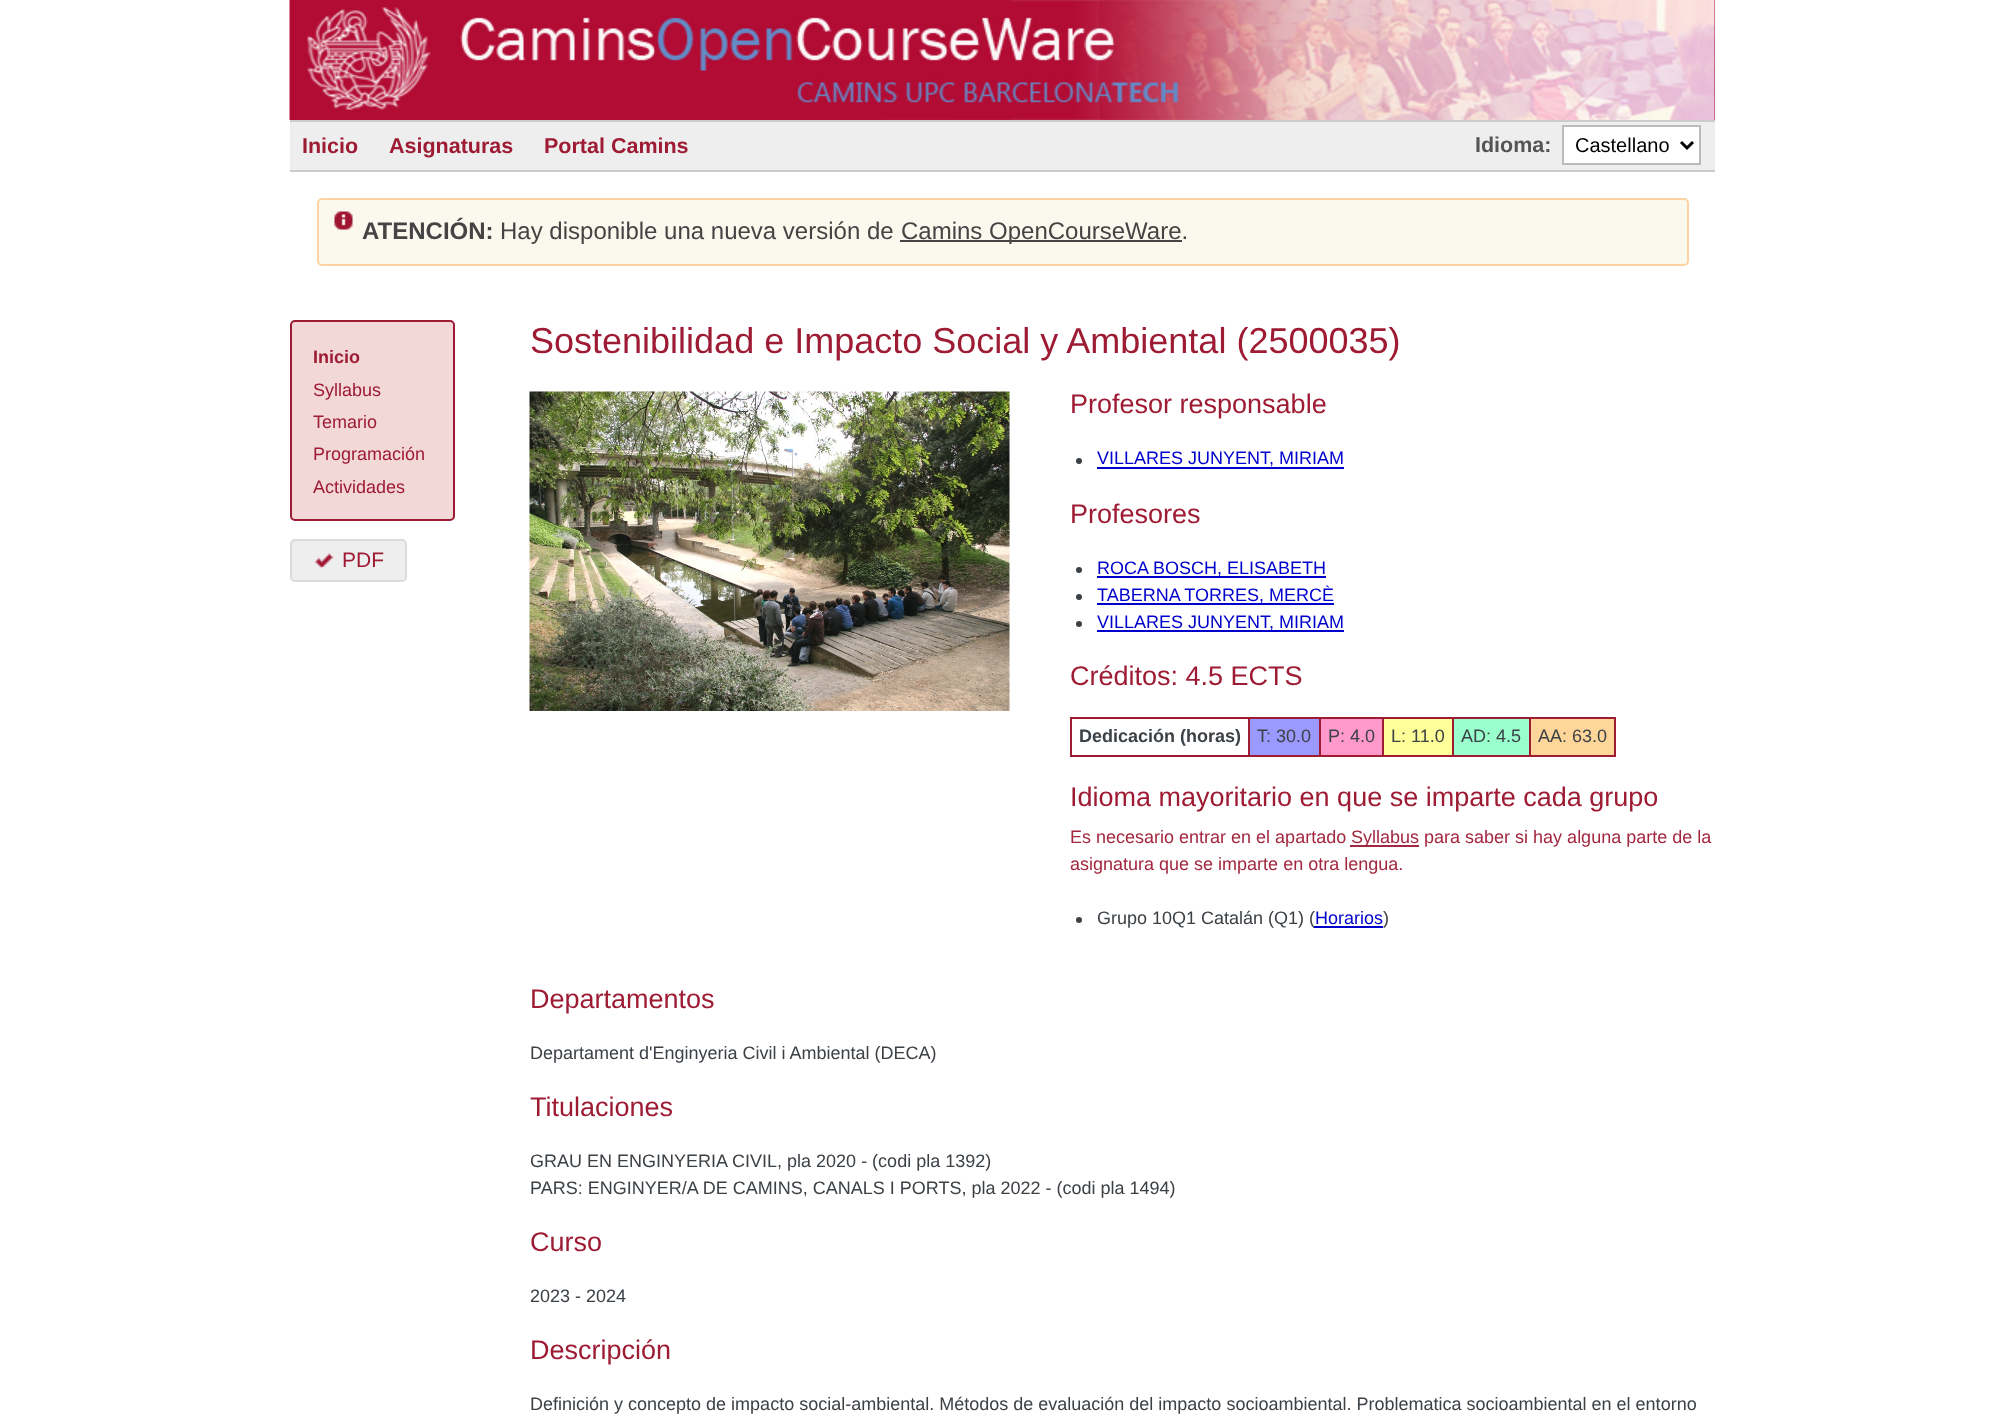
<svg xmlns="http://www.w3.org/2000/svg" width="2003" height="1422" viewBox="0 0 2003 1422">
  <rect width="100%" height="100%" fill="#fff"/>
  <path d="M1714 0h1v120H1714z" fill="#9e1b34"/>
  <image x="289" y="0" width="1426" height="120" href="img/1.png"/>
  <path d="M290 122h1425v48H290z" fill="#eee"/>
  <path d="M290 120h1425v2H290z" fill="#ccc"/>
  <path d="M290 170h1425v2H290z" fill="#ccc"/>
  <path d="M1563 126h137v38H1563z" fill="#fff" stroke="#bbb" stroke-width="2"/>
  <path d="M1681 142L1687 148L1693 142" fill="none" stroke="#000" stroke-width="3"/>
  <rect x="318" y="199" width="1370" height="66" rx="4" fill="#fbf8ee" stroke="#fcd3a1" stroke-width="2"/>
  <image x="334" y="211" width="19" height="19" href="img/2.png"/>
  <path d="M900 240h282v2H900z" fill="#444"/>
  <rect x="291" y="321" width="163" height="199" rx="4" fill="#f3d8d8" stroke="#9e1b34" stroke-width="2"/>
  <rect x="291" y="540" width="115" height="41" rx="4" fill="#eee" stroke="#d8dcdf" stroke-width="2"/>
  <image x="314" y="553" width="20" height="15" href="img/3.png"/>
  <image x="529" y="391" width="481" height="320" href="img/4.png"/>
  <circle cx="1079" cy="461" r="3" fill="#3c4146"/>
  <path d="M1097 467h247v2H1097z" fill="#00c"/>
  <circle cx="1079" cy="570" r="3" fill="#3c4146"/>
  <path d="M1097 576h229v2H1097z" fill="#00c"/>
  <circle cx="1079" cy="597" r="3" fill="#3c4146"/>
  <path d="M1097 603h237v2H1097z" fill="#00c"/>
  <circle cx="1079" cy="624" r="3" fill="#3c4146"/>
  <path d="M1097 630h247v2H1097z" fill="#00c"/>
  <path d="M1529 717h87v2H1529z" fill="#9e1b34"/>
  <path d="M1614 717h2v39H1614z" fill="#9e1b34"/>
  <path d="M1529 755h87v2H1529z" fill="#9e1b34"/>
  <path d="M1529 717h2v39H1529z" fill="#9e1b34"/>
  <path d="M1452 717h78v2H1452z" fill="#9e1b34"/>
  <path d="M1452 755h78v2H1452z" fill="#9e1b34"/>
  <path d="M1452 717h2v39H1452z" fill="#9e1b34"/>
  <path d="M1382 717h72v2H1382z" fill="#9e1b34"/>
  <path d="M1382 755h72v2H1382z" fill="#9e1b34"/>
  <path d="M1382 717h2v39H1382z" fill="#9e1b34"/>
  <path d="M1319 717h64v2H1319z" fill="#9e1b34"/>
  <path d="M1319 755h64v2H1319z" fill="#9e1b34"/>
  <path d="M1319 717h2v39H1319z" fill="#9e1b34"/>
  <path d="M1248 717h72v2H1248z" fill="#9e1b34"/>
  <path d="M1248 755h72v2H1248z" fill="#9e1b34"/>
  <path d="M1248 717h2v39H1248z" fill="#9e1b34"/>
  <path d="M1070 717h180v2H1070z" fill="#9e1b34"/>
  <path d="M1070 755h180v2H1070z" fill="#9e1b34"/>
  <path d="M1070 717h2v39H1070z" fill="#9e1b34"/>
  <path d="M1250 719h69v36H1250z" fill="#99f"/>
  <path d="M1321 719h61v36H1321z" fill="#f9c"/>
  <path d="M1384 719h68v36H1384z" fill="#ff9"/>
  <path d="M1454 719h75v36H1454z" fill="#9fc"/>
  <path d="M1531 719h83v36H1531z" fill="#ffd699"/>
  <path d="M1350 845h69v2H1350z" fill="#a3283f"/>
  <circle cx="1079" cy="920" r="3" fill="#3c4146"/>
  <g font-family="Liberation Sans" font-size="21.5" font-weight="bold" fill="#9e1b34">
    <text x="302" y="153">Inicio</text>
    <text x="389" y="153">Asignaturas</text>
    <text x="544" y="153">Portal Camins</text>
  </g>
  <text x="1475" y="152" font-family="Liberation Sans" font-size="21.5" font-weight="bold" fill="#555">Idioma:</text>
  <text x="1575" y="152" font-family="Liberation Sans" font-size="20" fill="#000">Castellano</text>
  <text x="362" y="239" font-family="Liberation Sans" font-size="24" font-weight="bold" fill="#444">ATENCIÓN:</text>
  <g font-family="Liberation Sans" font-size="24" fill="#444">
    <text x="500" y="239">Hay disponible una nueva versión de</text>
    <text x="901" y="239">Camins OpenCourseWare.</text>
  </g>
  <text x="313" y="363" font-family="Liberation Sans" font-size="18" font-weight="bold" fill="#9e1b34">Inicio</text>
  <g font-family="Liberation Sans" font-size="18" fill="#9e1b34">
    <text x="313" y="396">Syllabus</text>
    <text x="313" y="428">Temario</text>
    <text x="313" y="460">Programación</text>
    <text x="313" y="493">Actividades</text>
  </g>
  <text x="342" y="567" font-family="Liberation Sans" font-size="21" fill="#9e1b34">PDF</text>
  <text x="530" y="353" font-family="Liberation Sans" font-size="36" fill="#9e1b34">Sostenibilidad e Impacto Social y Ambiental (2500035)</text>
  <text x="1070" y="413" font-family="Liberation Sans" font-size="27" fill="#9e1b34">Profesor responsable</text>
  <text x="1097" y="464" font-family="Liberation Sans" font-size="18" fill="#00c">VILLARES JUNYENT, MIRIAM</text>
  <text x="1070" y="523" font-family="Liberation Sans" font-size="27" fill="#9e1b34">Profesores</text>
  <g font-family="Liberation Sans" font-size="18" fill="#00c">
    <text x="1097" y="574">ROCA BOSCH, ELISABETH</text>
    <text x="1097" y="601">TABERNA TORRES, MERCÈ</text>
    <text x="1097" y="628">VILLARES JUNYENT, MIRIAM</text>
  </g>
  <text x="1070" y="685" font-family="Liberation Sans" font-size="27" fill="#9e1b34">Créditos: 4.5 ECTS</text>
  <text x="1079" y="742" font-family="Liberation Sans" font-size="18" font-weight="bold" fill="#3c4146">Dedicación (horas)</text>
  <g font-family="Liberation Sans" font-size="18" fill="#3c4146">
    <text x="1257" y="742">T: 30.0</text>
    <text x="1328" y="742">P: 4.0</text>
    <text x="1391" y="742">L: 11.0</text>
    <text x="1461" y="742">AD: 4.5</text>
    <text x="1538" y="742">AA: 63.0</text>
  </g>
  <text x="1070" y="806" font-family="Liberation Sans" font-size="27" fill="#9e1b34">Idioma mayoritario en que se imparte cada grupo</text>
  <g font-family="Liberation Sans" font-size="18" fill="#a3283f">
    <text x="1070" y="843">Es necesario entrar en el apartado</text>
    <text x="1351" y="843">Syllabus para saber si hay alguna parte de la</text>
    <text x="1070" y="870">asignatura que se imparte en otra lengua.</text>
  </g>
  <text x="1097" y="924" font-family="Liberation Sans" font-size="18" fill="#3c4146">Grupo 10Q1 Catalán (Q1) (</text>
  <text x="1315" y="924" font-family="Liberation Sans" font-size="18" fill="#00c">Horarios</text>
  <path d="M1314 926h69v2H1314z" fill="#00c"/>
  <text x="1383" y="924" font-family="Liberation Sans" font-size="18" fill="#3c4146">)</text>
  <text x="530" y="1008" font-family="Liberation Sans" font-size="27" fill="#9e1b34">Departamentos</text>
  <text x="530" y="1059" font-family="Liberation Sans" font-size="18" fill="#3c4146">Departament d'Enginyeria Civil i Ambiental (DECA)</text>
  <text x="530" y="1116" font-family="Liberation Sans" font-size="27" fill="#9e1b34">Titulaciones</text>
  <g font-family="Liberation Sans" font-size="18" fill="#3c4146">
    <text x="530" y="1167">GRAU EN ENGINYERIA CIVIL, pla 2020 - (codi pla 1392)</text>
    <text x="530" y="1194">PARS: ENGINYER/A DE CAMINS, CANALS I PORTS, pla 2022 - (codi pla 1494)</text>
  </g>
  <text x="530" y="1251" font-family="Liberation Sans" font-size="27" fill="#9e1b34">Curso</text>
  <text x="530" y="1302" font-family="Liberation Sans" font-size="18" fill="#3c4146">2023 - 2024</text>
  <text x="530" y="1359" font-family="Liberation Sans" font-size="27" fill="#9e1b34">Descripción</text>
  <text x="530" y="1410" font-family="Liberation Sans" font-size="18" fill="#3c4146">Definición y concepto de impacto social-ambiental. Métodos de evaluación del impacto socioambiental. Problematica socioambiental en el entorno</text>
</svg>
